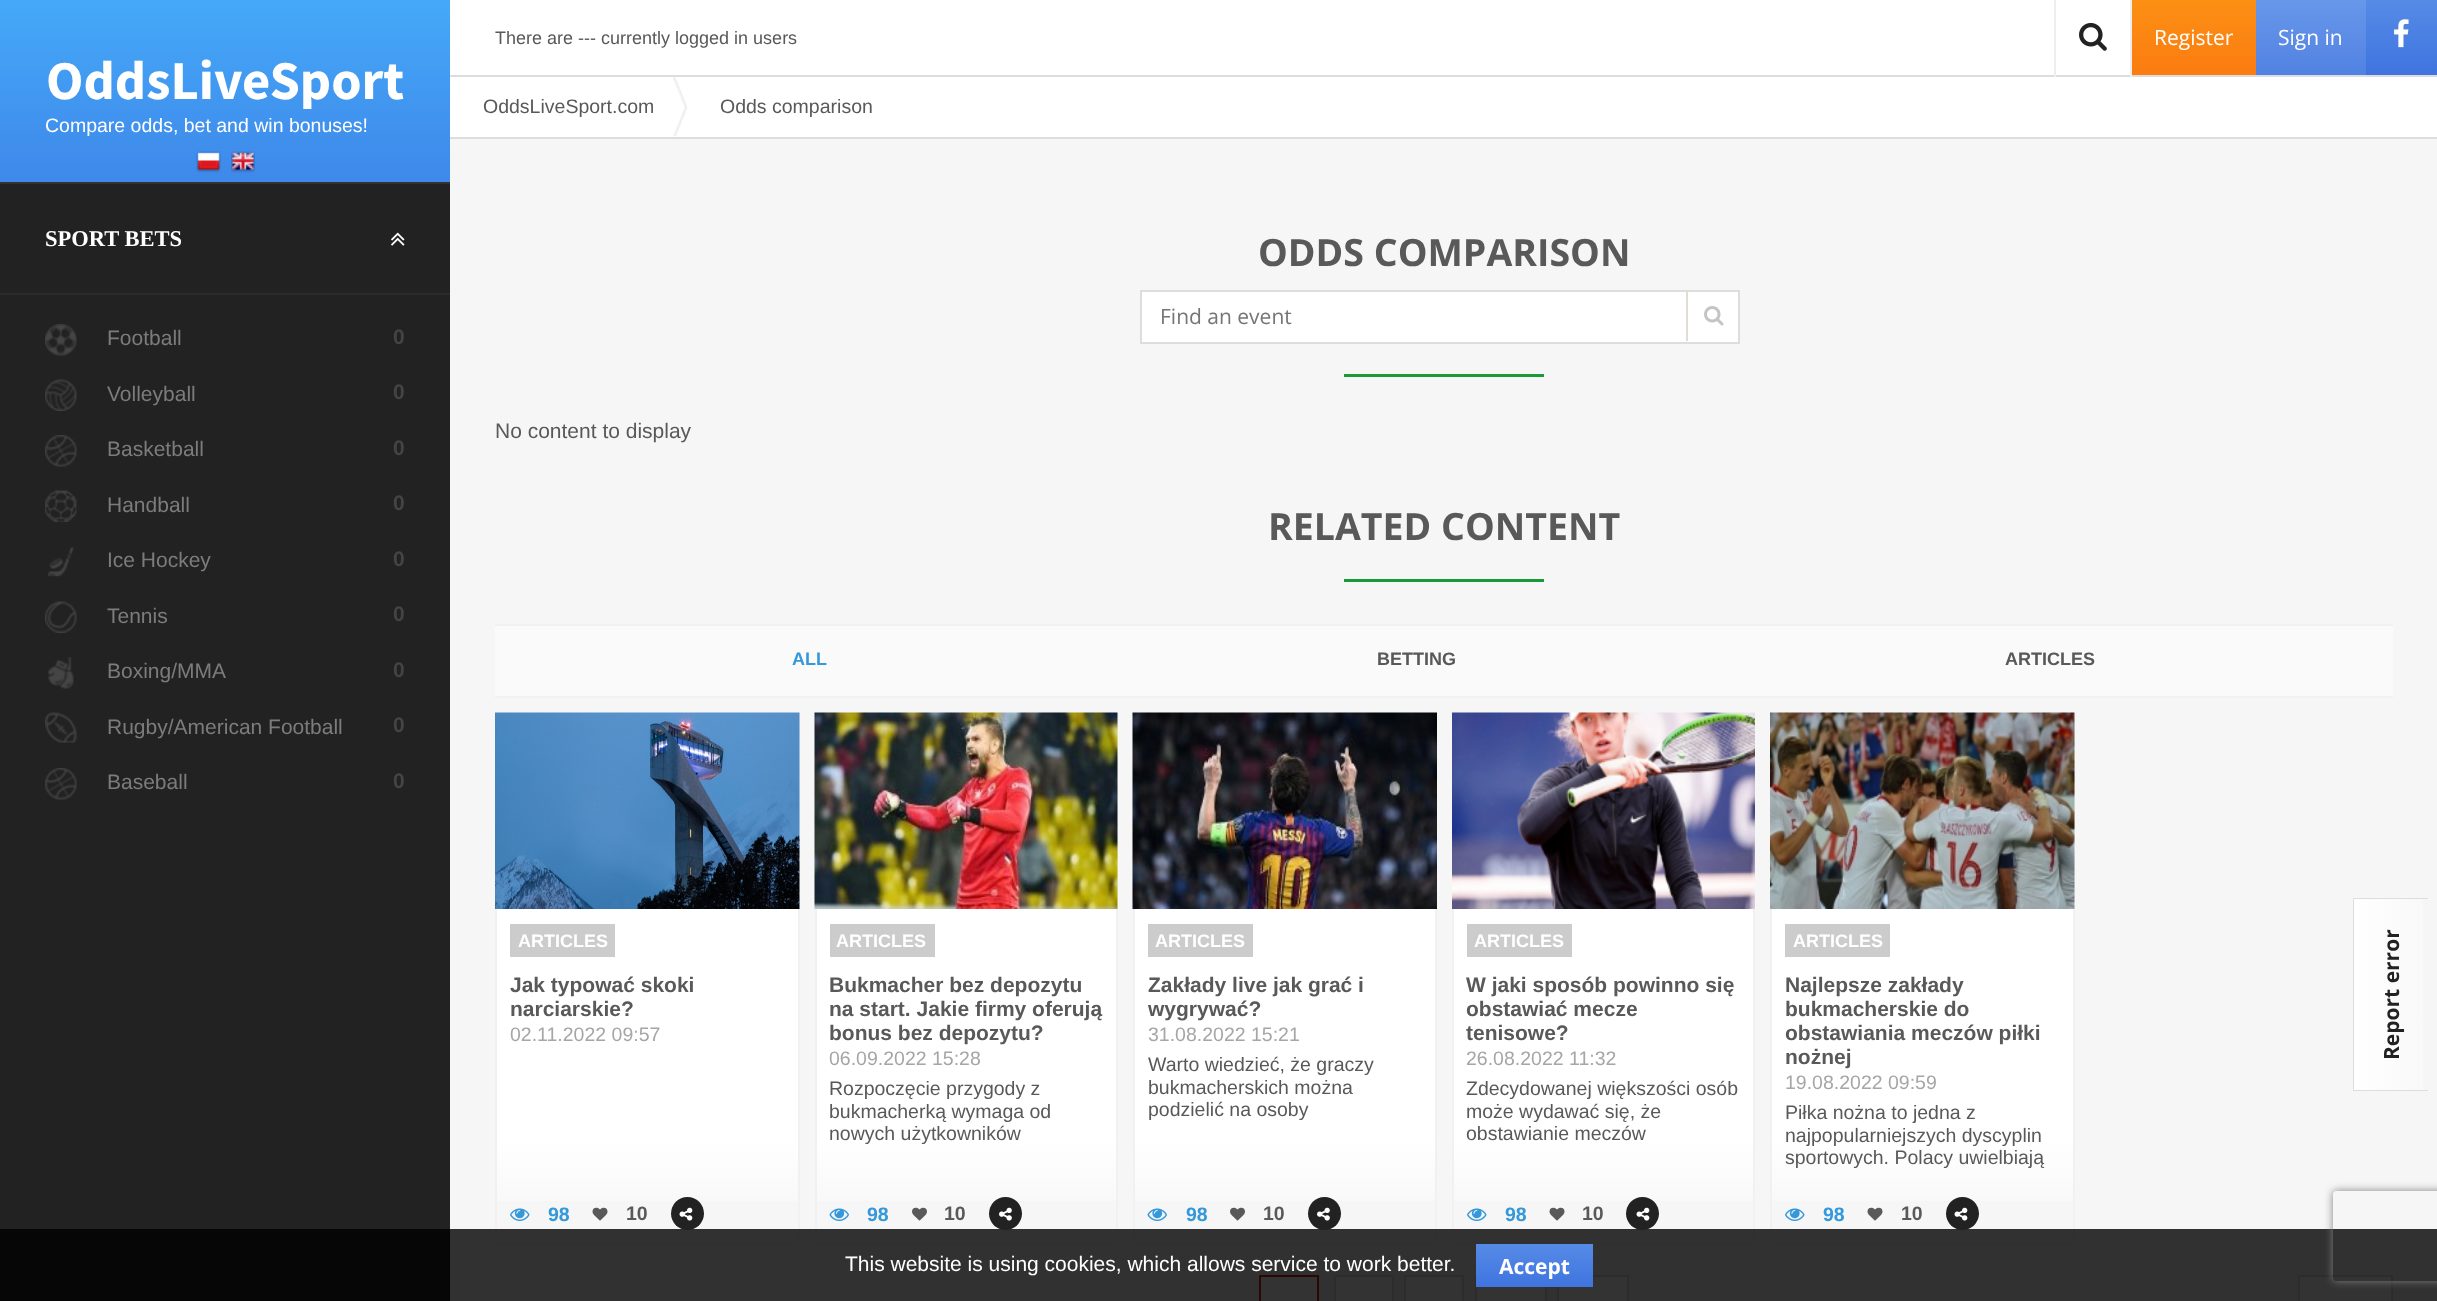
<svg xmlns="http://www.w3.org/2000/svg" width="2437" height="1301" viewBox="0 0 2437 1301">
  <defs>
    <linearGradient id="g1" gradientUnits="userSpaceOnUse" x1="2194" y1="0" x2="2194" y2="75"><stop offset="0" stop-color="#fc8f13"/><stop offset="1" stop-color="#fb7c11"/></linearGradient>
    <linearGradient id="g2" gradientUnits="userSpaceOnUse" x1="2311" y1="0" x2="2311" y2="75"><stop offset="0" stop-color="#6797e9"/><stop offset="1" stop-color="#5282e2"/></linearGradient>
    <linearGradient id="g3" gradientUnits="userSpaceOnUse" x1="2402" y1="0" x2="2402" y2="75"><stop offset="0" stop-color="#568be7"/><stop offset="1" stop-color="#3f74df"/></linearGradient>
    <linearGradient id="g4" gradientUnits="userSpaceOnUse" x1="225" y1="0" x2="225" y2="182"><stop offset="0" stop-color="#45a9f8"/><stop offset="1" stop-color="#3e88ea"/></linearGradient>
    <linearGradient id="g5" gradientUnits="userSpaceOnUse" x1="647" y1="713" x2="647" y2="1245"><stop offset="0.8" stop-color="#fff"/><stop offset="1" stop-color="#f4f4f4"/></linearGradient>
    <linearGradient id="g6" gradientUnits="userSpaceOnUse" x1="966" y1="713" x2="966" y2="1245"><stop offset="0.8" stop-color="#fff"/><stop offset="1" stop-color="#f4f4f4"/></linearGradient>
    <linearGradient id="g7" gradientUnits="userSpaceOnUse" x1="1285" y1="713" x2="1285" y2="1245"><stop offset="0.8" stop-color="#fff"/><stop offset="1" stop-color="#f4f4f4"/></linearGradient>
    <linearGradient id="g8" gradientUnits="userSpaceOnUse" x1="1604" y1="713" x2="1604" y2="1245"><stop offset="0.8" stop-color="#fff"/><stop offset="1" stop-color="#f4f4f4"/></linearGradient>
    <linearGradient id="g9" gradientUnits="userSpaceOnUse" x1="1922" y1="713" x2="1922" y2="1245"><stop offset="0.8" stop-color="#fff"/><stop offset="1" stop-color="#f4f4f4"/></linearGradient>
    <linearGradient id="g10" gradientUnits="userSpaceOnUse" x1="1364" y1="1277" x2="1364" y2="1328"><stop offset="0" stop-color="#fff"/><stop offset="1" stop-color="#f8f8f8"/></linearGradient>
    <linearGradient id="g11" gradientUnits="userSpaceOnUse" x1="1434" y1="1277" x2="1434" y2="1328"><stop offset="0" stop-color="#fff"/><stop offset="1" stop-color="#f8f8f8"/></linearGradient>
    <linearGradient id="g12" gradientUnits="userSpaceOnUse" x1="1511" y1="1277" x2="1511" y2="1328"><stop offset="0" stop-color="#fff"/><stop offset="1" stop-color="#f8f8f8"/></linearGradient>
    <linearGradient id="g13" gradientUnits="userSpaceOnUse" x1="1593" y1="1277" x2="1593" y2="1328"><stop offset="0" stop-color="#fff"/><stop offset="1" stop-color="#f8f8f8"/></linearGradient>
    <linearGradient id="g14" gradientUnits="userSpaceOnUse" x1="2345" y1="1277" x2="2345" y2="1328"><stop offset="0" stop-color="#fff"/><stop offset="1" stop-color="#f8f8f8"/></linearGradient>
    <linearGradient id="g15" gradientUnits="userSpaceOnUse" x1="2354" y1="995" x2="2428" y2="995"><stop offset="0" stop-color="#fff"/><stop offset="1" stop-color="#f8f8f8"/></linearGradient>
    <linearGradient id="g16" gradientUnits="userSpaceOnUse" x1="1535" y1="1244" x2="1535" y2="1287"><stop offset="0" stop-color="#568be7"/><stop offset="1" stop-color="#3f74df"/></linearGradient>
    <clipPath id="clip1"><path d="M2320 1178H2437V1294H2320ZM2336 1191H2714C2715.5 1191 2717 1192.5 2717 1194V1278C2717 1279.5 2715.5 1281 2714 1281H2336C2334.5 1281 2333 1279.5 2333 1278V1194C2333 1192.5 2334.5 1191 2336 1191Z" clip-rule="evenodd"/></clipPath>
  </defs>
  <rect width="100%" height="100%" fill="#f6f6f6"/>
  <path d="M450 0h1680v75H450z" fill="#fff"/>
  <path d="M450 75h1987v2H450z" fill="#ddd"/>
  <path d="M2130 0h2v77H2130z" fill="#eee"/>
  <path d="M2054 0h2v77H2054z" fill="#eee"/>
  <image x="2079" y="22" width="28" height="29" href="img/1.png"/>
  <path d="M2132 0h124v75H2132z" fill="url(#g1)"/>
  <path d="M2256 0h110v75H2256z" fill="url(#g2)"/>
  <path d="M2366 0h71v75H2366z" fill="url(#g3)"/>
  <image x="2394" y="19" width="15" height="29" href="img/2.png"/>
  <path d="M0 182h450v2H0z" fill="#323232"/>
  <path d="M0 0h450v182H0z" fill="url(#g4)"/>
  <image x="196" y="151" width="25" height="22" href="img/3.png"/>
  <image x="231" y="151" width="24" height="22" href="img/4.png"/>
  <path d="M0 184h450v1117H0z" fill="#222"/>
  <path d="M0 293h450v2H0z" fill="#2b2b2b"/>
  <image x="391" y="232" width="14" height="14" href="img/5.png"/>
  <image x="45" y="324" width="32" height="32" href="img/6.png"/>
  <image x="45" y="379" width="32" height="32" href="img/7.png"/>
  <image x="45" y="435" width="32" height="32" href="img/8.png"/>
  <image x="45" y="490" width="32" height="32" href="img/9.png"/>
  <image x="48" y="547" width="26" height="30" href="img/10.png"/>
  <image x="45" y="601" width="32" height="32" href="img/11.png"/>
  <image x="48" y="657" width="26" height="32" href="img/12.png"/>
  <image x="45" y="712" width="32" height="31" href="img/13.png"/>
  <image x="45" y="768" width="32" height="32" href="img/8.png"/>
  <path d="M450 77h1987v60H450z" fill="#fff"/>
  <path d="M450 137h1987v2H450z" fill="#ddd"/>
  <image x="673" y="77" width="14" height="60" href="img/14.png"/>
  <path d="M1141 291h598v52H1141z" fill="#fff" stroke="#ddd" stroke-width="2"/>
  <path d="M1686 290h2v51H1686z" fill="#e1ddd3"/>
  <image x="1704" y="306" width="20" height="20" href="img/15.png"/>
  <path d="M1344 374h200v3H1344z" fill="#189a39"/>
  <path d="M1344 579h200v3H1344z" fill="#189a39"/>
  <path d="M495 626h1898v70H495z" fill="#fafafa"/>
  <path d="M495 624h1898v2H495z" fill="#f1f1f1"/>
  <path d="M495 696h1898v2H495z" fill="#f1f1f1"/>
  <path d="M497 909h301v292H497z" fill="url(#g5)"/>
  <path d="M496 714h303v530H496z" fill="none" stroke="#f1f1f1" stroke-width="2"/>
  <image x="495" y="712" width="305" height="197" href="img/16.png"/>
  <path d="M510 924h105v33H510z" fill="#ccc"/>
  <image x="510" y="1208" width="20" height="13" href="img/17.png"/>
  <image x="592" y="1207" width="16" height="14" href="img/18.png"/>
  <path d="M817 909h299v292H817z" fill="url(#g6)"/>
  <path d="M816 714h301v530H816z" fill="none" stroke="#f1f1f1" stroke-width="2"/>
  <path d="M1135 909h300v292H1135z" fill="url(#g7)"/>
  <path d="M1134 714h302v530H1134z" fill="none" stroke="#f1f1f1" stroke-width="2"/>
  <path d="M1454 909h299v292H1454z" fill="url(#g8)"/>
  <path d="M1453 714h301v530H1453z" fill="none" stroke="#f1f1f1" stroke-width="2"/>
  <path d="M1772 909h301v292H1772z" fill="url(#g9)"/>
  <path d="M1771 714h303v530H1771z" fill="none" stroke="#f1f1f1" stroke-width="2"/>
  <path d="M1260 1276h58v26H1260z" fill="#fff" stroke="#da251c" stroke-width="2"/>
  <path d="M1336 1277h56v24H1336z" fill="url(#g10)"/>
  <path d="M1335 1276h58v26H1335z" fill="none" stroke="#ddd" stroke-width="2"/>
  <path d="M1406 1277h56v24H1406z" fill="url(#g11)"/>
  <path d="M1405 1276h58v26H1405z" fill="none" stroke="#ddd" stroke-width="2"/>
  <path d="M1477 1287h68v14H1477z" fill="url(#g12)"/>
  <path d="M1476 1276h70v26H1476z" fill="none" stroke="#ddd" stroke-width="2"/>
  <path d="M1559 1277h68v24H1559z" fill="url(#g13)"/>
  <path d="M1558 1276h70v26H1558z" fill="none" stroke="#ddd" stroke-width="2"/>
  <path d="M2300 1277h91v24H2300z" fill="url(#g14)"/>
  <path d="M2299 1276h93v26H2299z" fill="none" stroke="#ddd" stroke-width="2"/>
  <path d="M0 1229h2437v72H0z" fill="#000000cc"/>
  <circle cx="687.5" cy="1213.5" r="16.5" fill="#222"/>
  <image x="679" y="1207" width="14" height="14" href="img/19.png"/>
  <image x="814" y="712" width="304" height="197" href="img/20.png"/>
  <path d="M830 924h105v33H830z" fill="#ccc"/>
  <image x="829" y="1208" width="20" height="13" href="img/21.png"/>
  <image x="912" y="1207" width="15" height="14" href="img/22.png"/>
  <circle cx="1005.5" cy="1213.5" r="16.5" fill="#222"/>
  <image x="999" y="1207" width="13" height="14" href="img/23.png"/>
  <image x="1132" y="712" width="305" height="197" href="img/24.png"/>
  <path d="M1148 924h105v33H1148z" fill="#ccc"/>
  <image x="1147" y="1208" width="20" height="13" href="img/21.png"/>
  <image x="1230" y="1207" width="15" height="14" href="img/22.png"/>
  <circle cx="1324.5" cy="1213.5" r="16.5" fill="#222"/>
  <image x="1317" y="1207" width="13" height="14" href="img/23.png"/>
  <image x="1452" y="712" width="303" height="197" href="img/25.png"/>
  <path d="M1467 924h105v33H1467z" fill="#ccc"/>
  <image x="1467" y="1208" width="20" height="13" href="img/17.png"/>
  <image x="1549" y="1207" width="16" height="14" href="img/18.png"/>
  <circle cx="1642.5" cy="1213.5" r="16.5" fill="#222"/>
  <image x="1636" y="1207" width="14" height="14" href="img/19.png"/>
  <image x="1770" y="712" width="305" height="197" href="img/26.png"/>
  <path d="M1785 924h105v33H1785z" fill="#ccc"/>
  <image x="1785" y="1208" width="20" height="13" href="img/17.png"/>
  <image x="1867" y="1207" width="16" height="14" href="img/18.png"/>
  <circle cx="1962.5" cy="1213.5" r="16.5" fill="#222"/>
  <image x="1954" y="1207" width="14" height="14" href="img/19.png"/>
  <path d="M2354 899h69v191H2354z" fill="url(#g15)"/>
  <path d="M2353 898h1v193H2353z" fill="#ddd"/>
  <path d="M2353 898h75v1H2353z" fill="#ddd"/>
  <path d="M2353 1090h75v1H2353z" fill="#ddd"/>
  <path d="M1476 1244h117v43H1476z" fill="url(#g16)"/>
  <g clip-path="url(#clip1)">
    <rect x="2333" y="1191" width="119" height="90" rx="3" fill="#808080" filter="blur(4px)"/>
  </g>
  <text x="495" y="44" font-family="Arimo" font-size="18" fill="#595959">There are --- currently logged in users</text>
  <g font-family="Open Sans" font-size="21" fill="#fff">
    <text x="2154" y="45">Register</text>
    <text x="2278" y="45">Sign in</text>
  </g>
  <text x="46" y="99" font-family="Source Sans Pro" font-size="54.75" font-weight="bold" fill="#fff">OddsLiveSport</text>
  <text x="45" y="132" font-family="Liberation Sans" font-size="19.5" fill="#fff">Compare odds, bet and win bonuses!</text>
  <text x="45" y="246" font-family="Liberation Serif" font-size="22.5" font-weight="bold" fill="#fff">SPORT BETS</text>
  <text x="107" y="345" font-family="Arimo" font-size="21" fill="#7c7c7c">Football</text>
  <text x="393" y="344" font-family="Arimo" font-size="21" font-weight="bold" fill="#444">0</text>
  <text x="107" y="401" font-family="Arimo" font-size="21" fill="#7c7c7c">Volleyball</text>
  <text x="393" y="399" font-family="Arimo" font-size="21" font-weight="bold" fill="#444">0</text>
  <text x="107" y="456" font-family="Arimo" font-size="21" fill="#7c7c7c">Basketball</text>
  <text x="393" y="455" font-family="Arimo" font-size="21" font-weight="bold" fill="#444">0</text>
  <text x="107" y="512" font-family="Arimo" font-size="21" fill="#7c7c7c">Handball</text>
  <text x="393" y="510" font-family="Arimo" font-size="21" font-weight="bold" fill="#444">0</text>
  <text x="107" y="567" font-family="Arimo" font-size="21" fill="#7c7c7c">Ice Hockey</text>
  <text x="393" y="566" font-family="Arimo" font-size="21" font-weight="bold" fill="#444">0</text>
  <text x="107" y="623" font-family="Arimo" font-size="21" fill="#7c7c7c">Tennis</text>
  <text x="393" y="621" font-family="Arimo" font-size="21" font-weight="bold" fill="#444">0</text>
  <text x="107" y="678" font-family="Arimo" font-size="21" fill="#7c7c7c">Boxing/MMA</text>
  <text x="393" y="677" font-family="Arimo" font-size="21" font-weight="bold" fill="#444">0</text>
  <text x="107" y="734" font-family="Arimo" font-size="21" fill="#7c7c7c">Rugby/American Football</text>
  <text x="393" y="732" font-family="Arimo" font-size="21" font-weight="bold" fill="#444">0</text>
  <text x="107" y="789" font-family="Arimo" font-size="21" fill="#7c7c7c">Baseball</text>
  <text x="393" y="788" font-family="Arimo" font-size="21" font-weight="bold" fill="#444">0</text>
  <g font-family="Arimo" font-size="19.5" fill="#595959">
    <text x="483" y="113">OddsLiveSport.com</text>
    <text x="720" y="113">Odds comparison</text>
  </g>
  <text x="1258" y="266" font-family="Open Sans" font-size="37.5" font-weight="bold" fill="#595959">ODDS COMPARISON</text>
  <text x="1160" y="324" font-family="Open Sans" font-size="21" fill="#757575">Find an event</text>
  <text x="495" y="438" font-family="Arimo" font-size="21" fill="#595959">No content to display</text>
  <text x="1268" y="540" font-family="Open Sans" font-size="37.5" font-weight="bold" fill="#595959">RELATED CONTENT</text>
  <text x="792" y="665" font-family="Arimo" font-size="18" font-weight="bold" fill="#3498db">ALL</text>
  <g font-family="Arimo" font-size="18" font-weight="bold" fill="#595959">
    <text x="1377" y="665">BETTING</text>
    <text x="2005" y="665">ARTICLES</text>
  </g>
  <text x="518" y="947" font-family="Arimo" font-size="18" font-weight="bold" fill="#fff">ARTICLES</text>
  <g font-family="Arimo" font-size="21" font-weight="bold" fill="#595959">
    <text x="510" y="992">Jak typować skoki</text>
    <text x="510" y="1016">narciarskie?</text>
  </g>
  <text x="510" y="1041" font-family="Arimo" font-size="19.5" fill="#a6a6a6">02.11.2022 09:57</text>
  <text x="548" y="1221" font-family="Arimo" font-size="19.5" font-weight="bold" fill="#3498db">98</text>
  <text x="626" y="1220" font-family="Arimo" font-size="19.5" font-weight="bold" fill="#595959">10</text>
  <text x="836" y="947" font-family="Arimo" font-size="18" font-weight="bold" fill="#fff">ARTICLES</text>
  <g font-family="Arimo" font-size="21" font-weight="bold" fill="#595959">
    <text x="829" y="992">Bukmacher bez depozytu</text>
    <text x="829" y="1016">na start. Jakie firmy oferują</text>
    <text x="829" y="1040">bonus bez depozytu?</text>
  </g>
  <text x="829" y="1065" font-family="Arimo" font-size="19.5" fill="#a6a6a6">06.09.2022 15:28</text>
  <g font-family="Arimo" font-size="19.5" fill="#595959">
    <text x="829" y="1095">Rozpoczęcie przygody z</text>
    <text x="829" y="1118">bukmacherką wymaga od</text>
    <text x="829" y="1140">nowych użytkowników</text>
  </g>
  <text x="867" y="1221" font-family="Arimo" font-size="19.5" font-weight="bold" fill="#3498db">98</text>
  <text x="944" y="1220" font-family="Arimo" font-size="19.5" font-weight="bold" fill="#595959">10</text>
  <text x="1155" y="947" font-family="Arimo" font-size="18" font-weight="bold" fill="#fff">ARTICLES</text>
  <g font-family="Arimo" font-size="21" font-weight="bold" fill="#595959">
    <text x="1148" y="992">Zakłady live jak grać i</text>
    <text x="1148" y="1016">wygrywać?</text>
  </g>
  <text x="1148" y="1041" font-family="Arimo" font-size="19.5" fill="#a6a6a6">31.08.2022 15:21</text>
  <g font-family="Arimo" font-size="19.5" fill="#595959">
    <text x="1148" y="1071">Warto wiedzieć, że graczy</text>
    <text x="1148" y="1094">bukmacherskich można</text>
    <text x="1148" y="1116">podzielić na osoby</text>
  </g>
  <text x="1186" y="1221" font-family="Arimo" font-size="19.5" font-weight="bold" fill="#3498db">98</text>
  <text x="1263" y="1220" font-family="Arimo" font-size="19.5" font-weight="bold" fill="#595959">10</text>
  <text x="1474" y="947" font-family="Arimo" font-size="18" font-weight="bold" fill="#fff">ARTICLES</text>
  <g font-family="Arimo" font-size="21" font-weight="bold" fill="#595959">
    <text x="1466" y="992">W jaki sposób powinno się</text>
    <text x="1466" y="1016">obstawiać mecze</text>
    <text x="1466" y="1040">tenisowe?</text>
  </g>
  <text x="1466" y="1065" font-family="Arimo" font-size="19.5" fill="#a6a6a6">26.08.2022 11:32</text>
  <g font-family="Arimo" font-size="19.5" fill="#595959">
    <text x="1466" y="1095">Zdecydowanej większości osób</text>
    <text x="1466" y="1118">może wydawać się, że</text>
    <text x="1466" y="1140">obstawianie meczów</text>
  </g>
  <text x="1505" y="1221" font-family="Arimo" font-size="19.5" font-weight="bold" fill="#3498db">98</text>
  <text x="1582" y="1220" font-family="Arimo" font-size="19.5" font-weight="bold" fill="#595959">10</text>
  <text x="1793" y="947" font-family="Arimo" font-size="18" font-weight="bold" fill="#fff">ARTICLES</text>
  <g font-family="Arimo" font-size="21" font-weight="bold" fill="#595959">
    <text x="1785" y="992">Najlepsze zakłady</text>
    <text x="1785" y="1016">bukmacherskie do</text>
    <text x="1785" y="1040">obstawiania meczów piłki</text>
    <text x="1785" y="1064">nożnej</text>
  </g>
  <text x="1785" y="1089" font-family="Arimo" font-size="19.5" fill="#a6a6a6">19.08.2022 09:59</text>
  <g font-family="Arimo" font-size="19.5" fill="#595959">
    <text x="1785" y="1119">Piłka nożna to jedna z</text>
    <text x="1785" y="1142">najpopularniejszych dyscyplin</text>
    <text x="1785" y="1164">sportowych. Polacy uwielbiają</text>
  </g>
  <text x="1823" y="1221" font-family="Arimo" font-size="19.5" font-weight="bold" fill="#3498db">98</text>
  <text x="1901" y="1220" font-family="Arimo" font-size="19.5" font-weight="bold" fill="#595959">10</text>
  <text x="2399" y="1060" transform="rotate(-90 2399 1060)" font-family="Open Sans" font-size="21" font-weight="bold" fill="#222">Report error</text>
  <text x="845" y="1271" font-family="Arimo" font-size="21" fill="#fff">This website is using cookies, which allows service to work better.</text>
  <text x="1499" y="1274" font-family="Open Sans" font-size="21" font-weight="bold" fill="#fff">Accept</text>
</svg>
